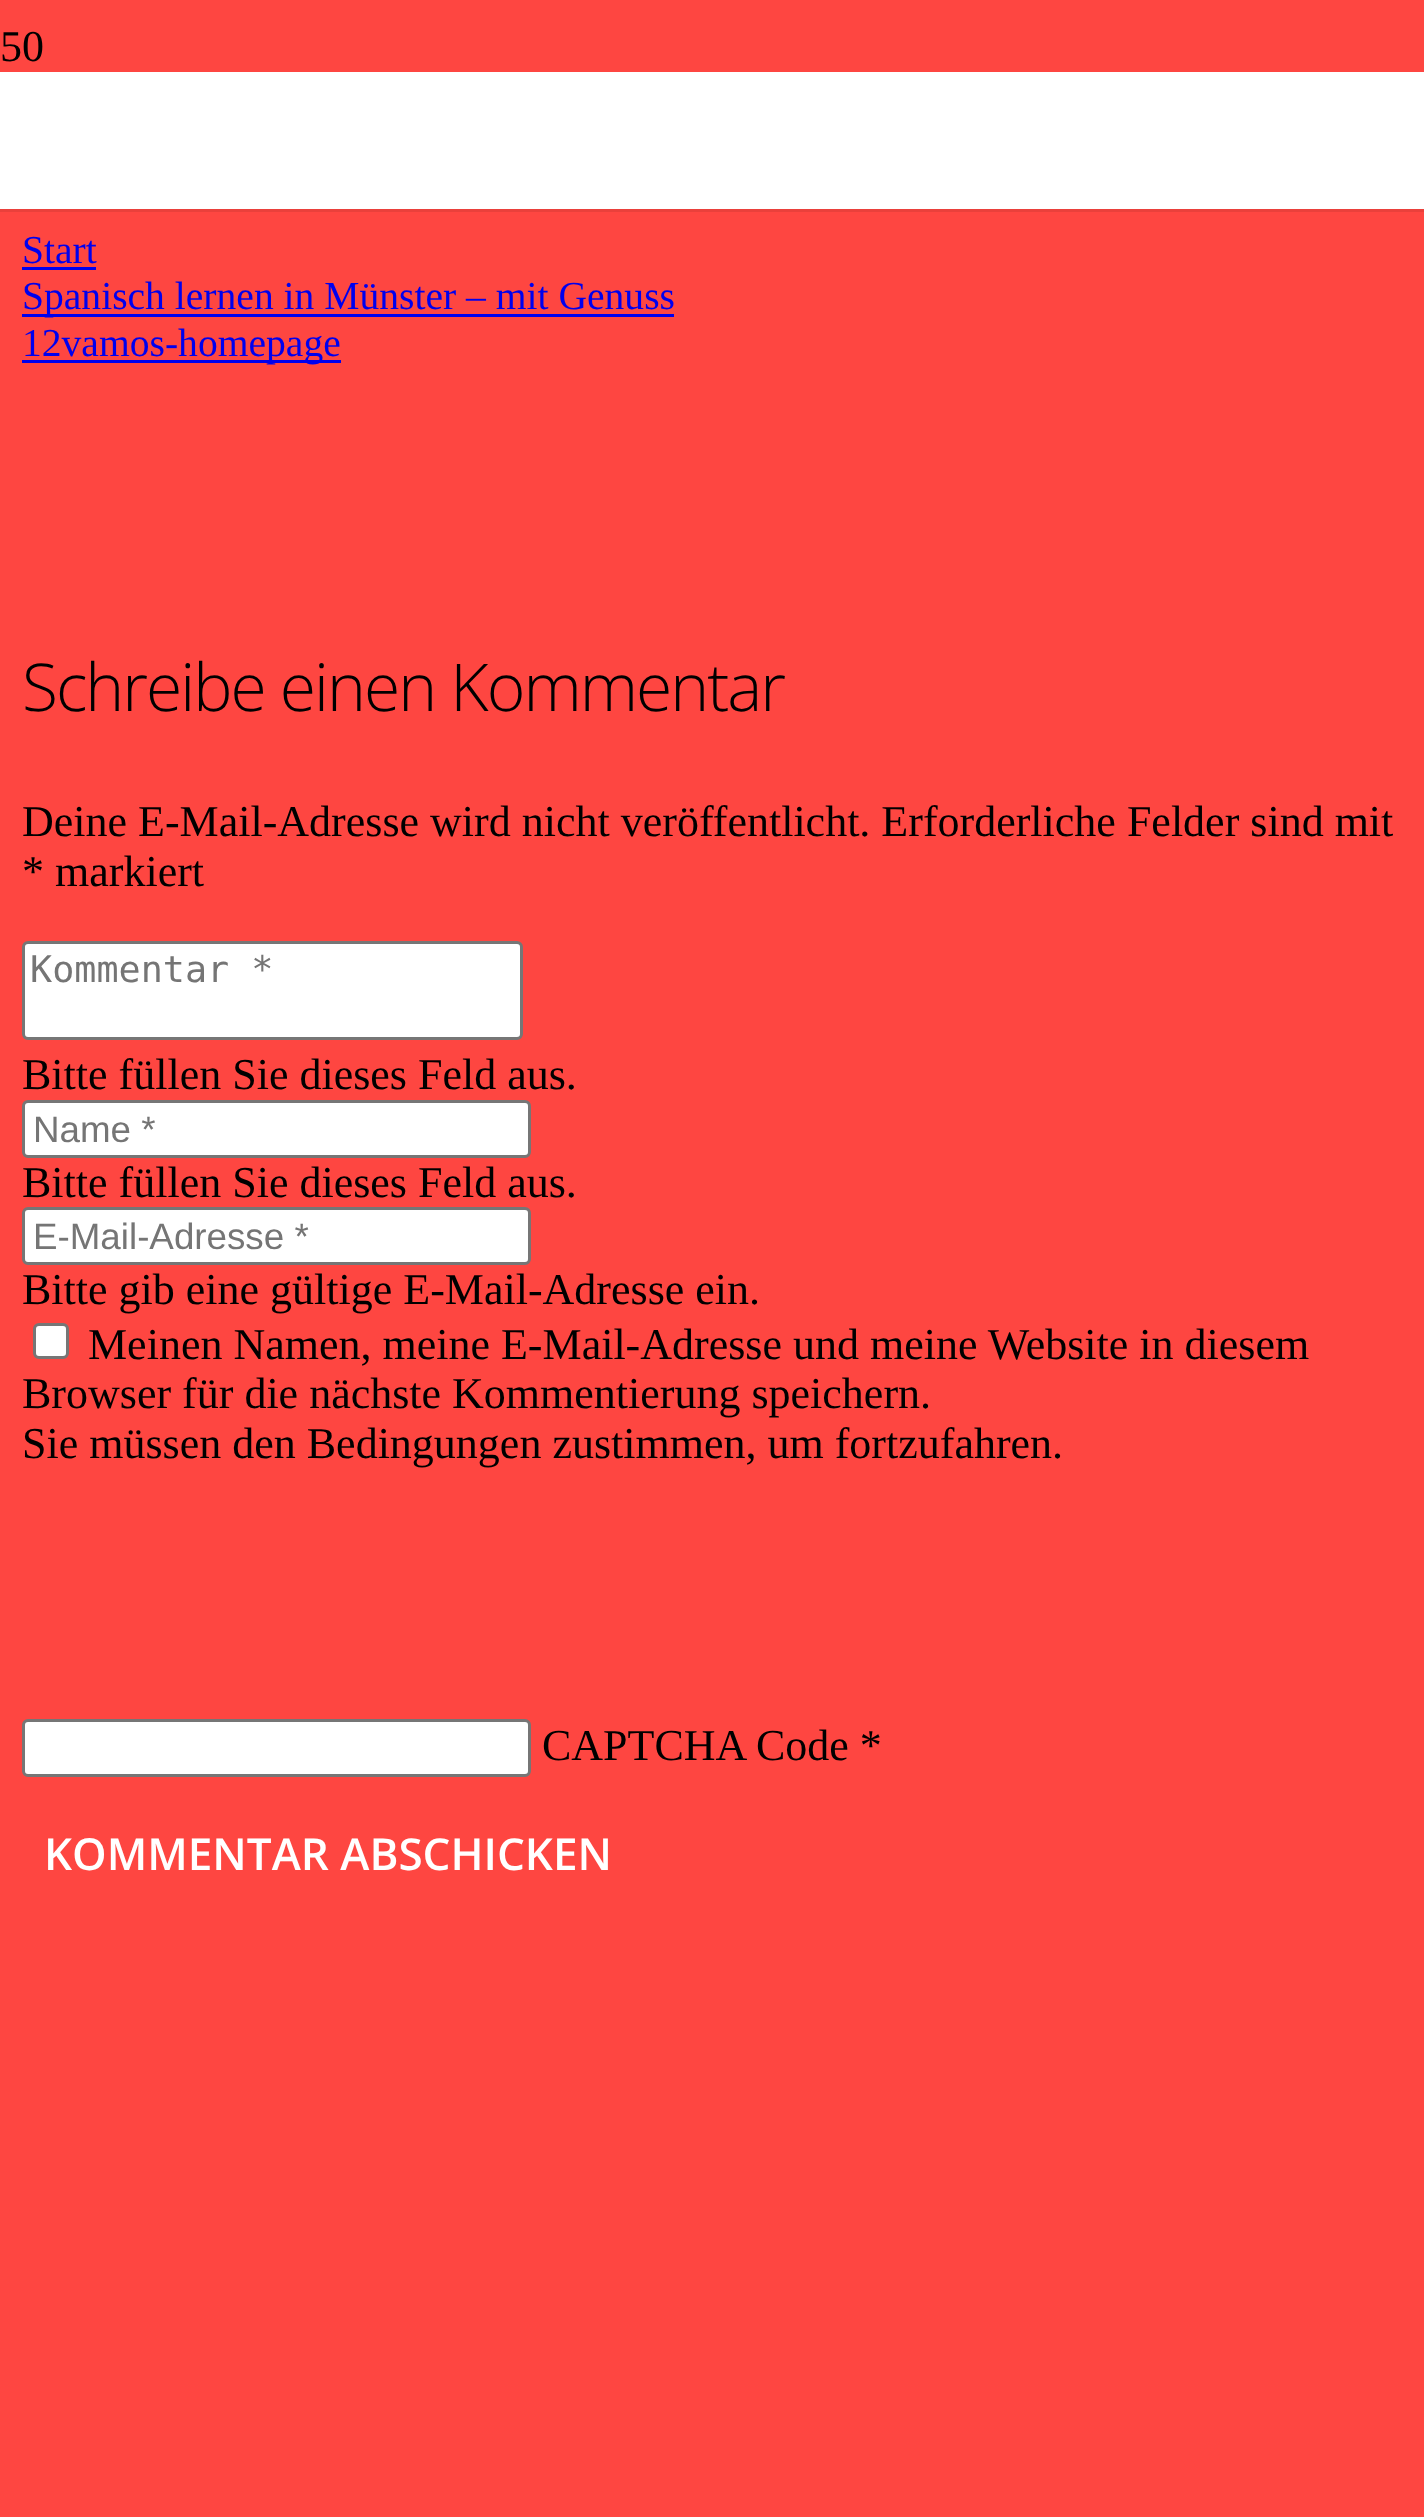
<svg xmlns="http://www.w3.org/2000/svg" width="1424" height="2517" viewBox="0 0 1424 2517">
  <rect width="100%" height="100%" fill="#fe4641"/>
  <path d="M0 209V212H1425V74H1424V209Z" fill="#00000014"/>
  <path d="M0 72h1424v137H0z" fill="#fff"/>
  <path d="M22 267h74v3H22z" fill="#00e"/>
  <path d="M22 314h652v3H22z" fill="#00e"/>
  <path d="M22 360h319v3H22z" fill="#00e"/>
  <rect x="23.5" y="942.5" width="498" height="96" rx="4.5" fill="#fff" stroke="#767676" stroke-width="3"/>
  <rect x="23.5" y="1101.5" width="506" height="55" rx="4.5" fill="#fff" stroke="#767676" stroke-width="3"/>
  <rect x="23.5" y="1208.5" width="506" height="55" rx="4.5" fill="#fff" stroke="#767676" stroke-width="3"/>
  <rect x="34.5" y="1324.5" width="33" height="33" rx="4.5" fill="#fff" stroke="#767676" stroke-width="3"/>
  <rect x="23.5" y="1720.5" width="506" height="55" rx="4.5" fill="#fff" stroke="#767676" stroke-width="3"/>
  <text x="0" y="61" font-family="Liberation Serif" font-size="44" fill="#000">50</text>
  <g font-family="Liberation Serif" font-size="39.6" fill="#00e">
    <text x="22" y="263">Start</text>
    <text x="22" y="309">Spanisch lernen in Münster – mit Genuss</text>
    <text x="22" y="356">12vamos-homepage</text>
  </g>
  <text x="22" y="711" font-family="Open Sans" font-size="66" font-weight="300" letter-spacing="-2" fill="#000">Schreibe einen Kommentar</text>
  <g font-family="Liberation Serif" font-size="44" fill="#000">
    <text x="22" y="836">Deine E-Mail-Adresse wird nicht veröffentlicht. Erforderliche Felder sind mit</text>
    <text x="22" y="886">* markiert</text>
  </g>
  <text x="30" y="982" font-family="DejaVu Sans Mono" font-size="36.75" fill="#757575">Kommentar *</text>
  <text x="22" y="1089" font-family="Liberation Serif" font-size="44" fill="#000">Bitte füllen Sie dieses Feld aus.</text>
  <text x="33" y="1142" font-family="Liberation Sans" font-size="36.75" fill="#757575">Name *</text>
  <text x="22" y="1197" font-family="Liberation Serif" font-size="44" fill="#000">Bitte füllen Sie dieses Feld aus.</text>
  <text x="33" y="1249" font-family="Liberation Sans" font-size="36.75" fill="#757575">E-Mail-Adresse *</text>
  <g font-family="Liberation Serif" font-size="44" fill="#000">
    <text x="22" y="1304">Bitte gib eine gültige E-Mail-Adresse ein.</text>
    <text x="88" y="1359">Meinen Namen, meine E-Mail-Adresse und meine Website in diesem</text>
    <text x="22" y="1408">Browser für die nächste Kommentierung speichern.</text>
    <text x="22" y="1458">Sie müssen den Bedingungen zustimmen, um fortzufahren.</text>
    <text x="542" y="1760">CAPTCHA Code *</text>
  </g>
  <text x="44" y="1870" font-family="Open Sans" font-size="44" font-weight="600" fill="#fff">KOMMENTAR ABSCHICKEN</text>
</svg>
